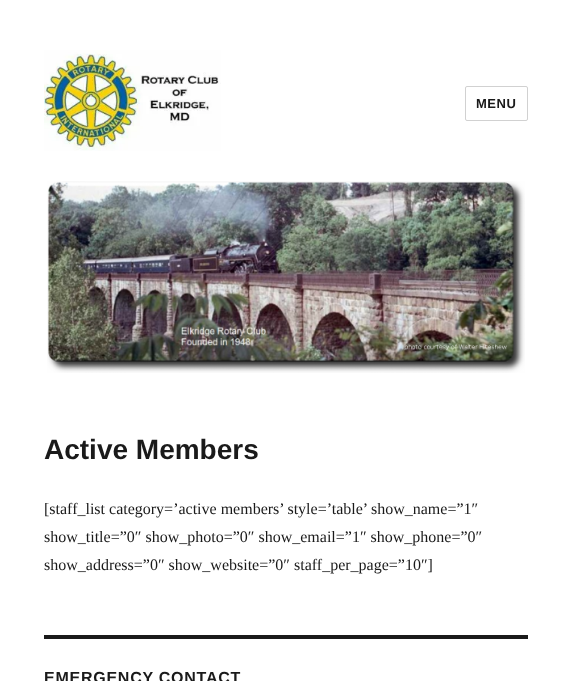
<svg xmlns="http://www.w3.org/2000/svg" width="572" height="681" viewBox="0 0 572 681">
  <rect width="100%" height="100%" fill="#fff"/>
  <image x="44" y="50" width="177" height="101" href="img/1.png"/>
  <rect x="465.5" y="86.5" width="62" height="34" rx="1.5" fill="none" stroke="#d1d1d1"/>
  <image x="47" y="181" width="478" height="192" href="img/2.png"/>
  <path d="M44 635h484v4H44z" fill="#1a1a1a"/>
  <text x="476" y="108" font-family="Liberation Sans" font-size="13" font-weight="bold" letter-spacing="0.5" fill="#1a1a1a">MENU</text>
  <text x="44" y="459" font-family="Liberation Sans" font-size="28" font-weight="bold" fill="#1a1a1a">Active Members</text>
  <g font-family="Liberation Serif" font-size="16" fill="#1a1a1a">
    <text x="44" y="514">[staff_list category=’active members’ style=’table’ show_name=”1″</text>
    <text x="44" y="542">show_title=”0″ show_photo=”0″ show_email=”1″ show_phone=”0″</text>
    <text x="44" y="570">show_address=”0″ show_website=”0″ staff_per_page=”10″]</text>
  </g>
  <text x="44" y="683" font-family="Liberation Sans" font-size="16" font-weight="bold" letter-spacing="0.75" fill="#1a1a1a">EMERGENCY CONTACT</text>
</svg>
